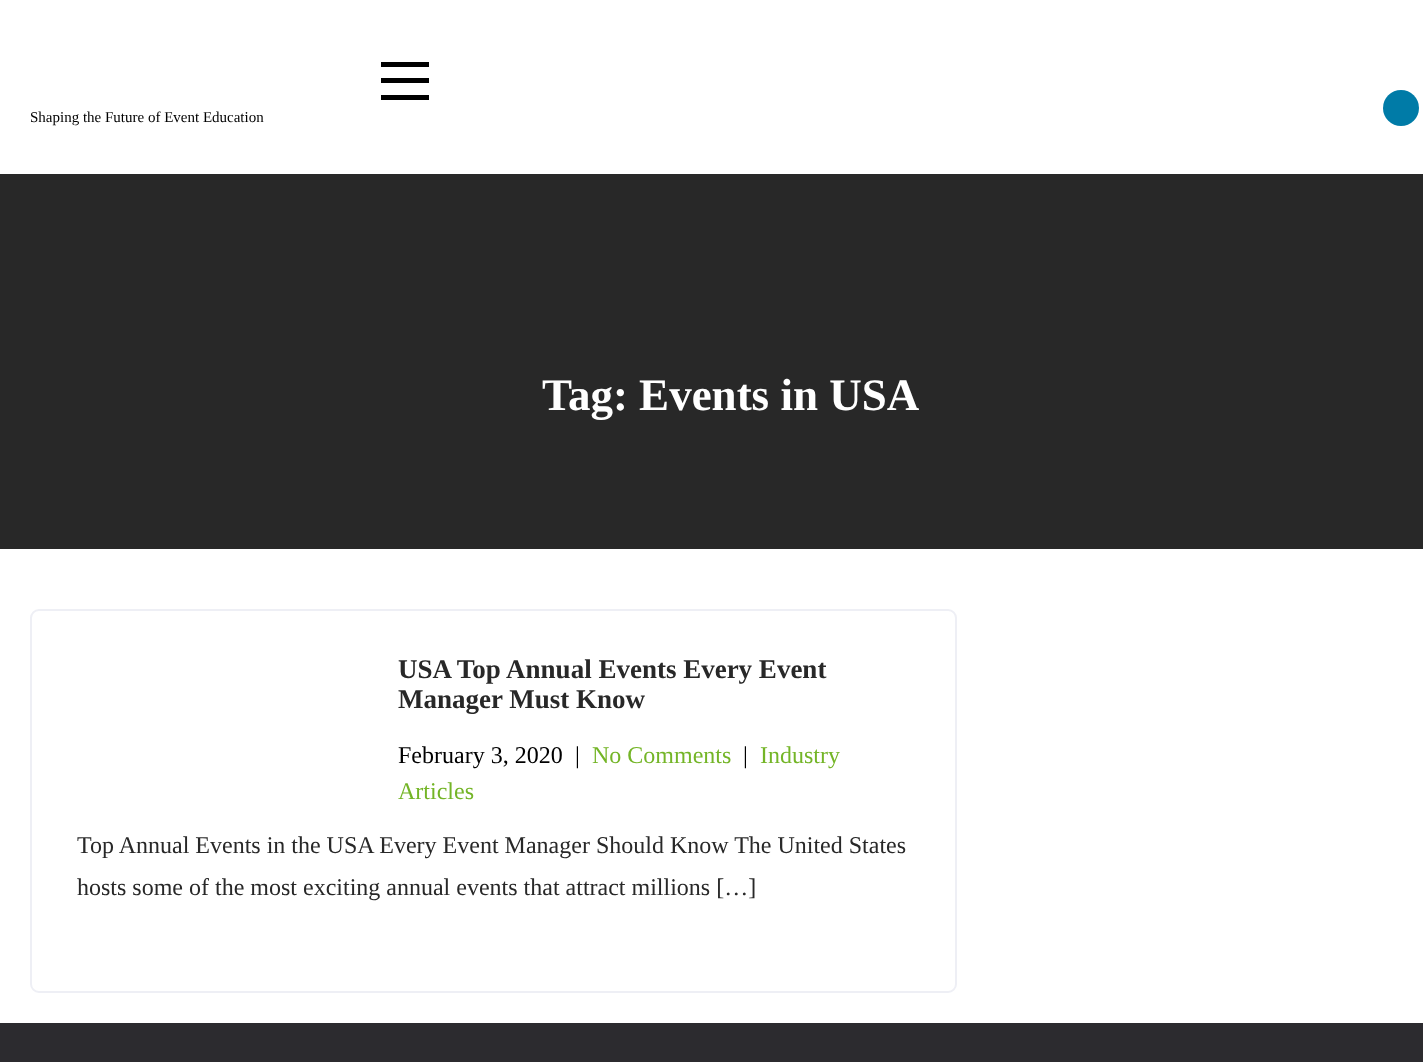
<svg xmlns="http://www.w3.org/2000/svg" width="1423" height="1062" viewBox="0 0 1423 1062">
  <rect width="100%" height="100%" fill="#fff"/>
  <path d="M381 62h48v5H381z" fill="#000"/>
  <path d="M381 78h48v5H381z" fill="#000"/>
  <path d="M381 95h48v5H381z" fill="#000"/>
  <circle cx="1401" cy="108" r="18" fill="#007ba7"/>
  <path d="M0 174h1423v375H0z" fill="#282828"/>
  <rect x="31" y="610" width="925" height="382" rx="8" fill="none" stroke="#eeeff5" stroke-width="2"/>
  <path d="M0 1023h1423v39H0z" fill="#2c2b2f"/>
  <text x="30" y="122" font-family="Liberation Serif" font-size="15" fill="#000">Shaping the Future of Event Education</text>
  <text x="542" y="410" font-family="Liberation Serif" font-size="45" font-weight="bold" fill="#fff">Tag: Events in USA</text>
  <g font-family="Liberation Serif" font-size="27" font-weight="bold" fill="#282828">
    <text x="398" y="678">USA Top Annual Events Every Event</text>
    <text x="398" y="708">Manager Must Know</text>
  </g>
  <g font-family="Liberation Serif" font-size="24" fill="#000">
    <text x="398" y="763">February 3, 2020</text>
    <text x="575" y="763">|</text>
  </g>
  <text x="592" y="763" font-family="Liberation Serif" font-size="24" fill="#74b527">No Comments</text>
  <text x="743" y="763" font-family="Liberation Serif" font-size="24" fill="#000">|</text>
  <g font-family="Liberation Serif" font-size="24" fill="#74b527">
    <text x="760" y="763">Industry</text>
    <text x="398" y="799">Articles</text>
  </g>
  <g font-family="Liberation Serif" font-size="24" fill="#282828">
    <text x="77" y="853">Top Annual Events in the USA Every Event Manager Should Know The United States</text>
    <text x="77" y="895">hosts some of the most exciting annual events that attract millions […]</text>
  </g>
</svg>
